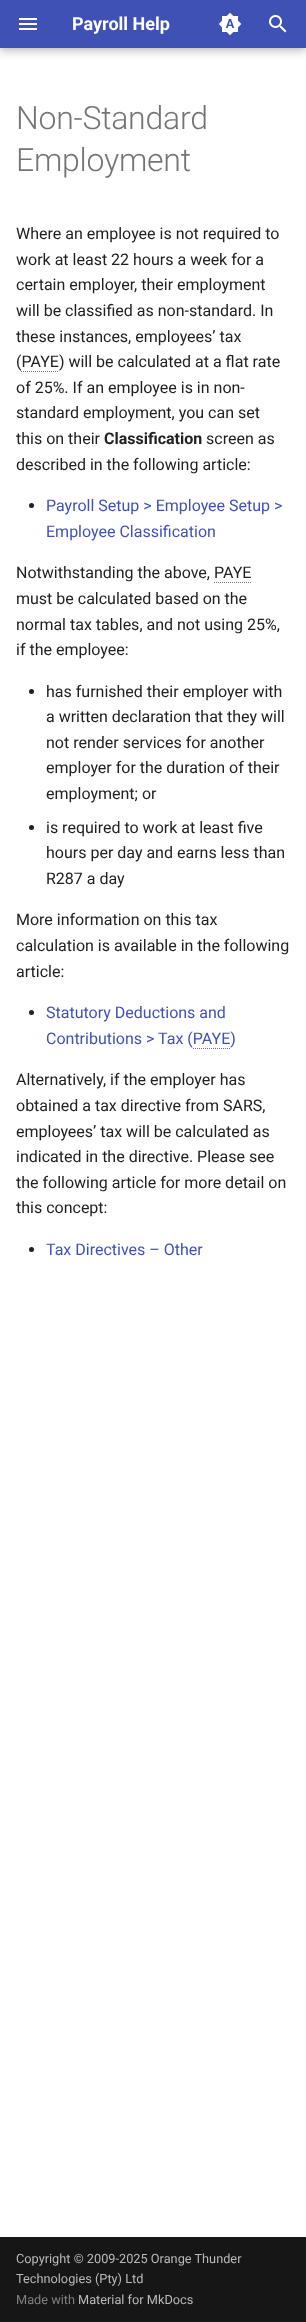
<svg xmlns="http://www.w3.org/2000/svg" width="306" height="2322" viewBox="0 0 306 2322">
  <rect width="100%" height="100%" fill="#fff"/>
  <path d="M0 4h306v48H0z" fill="#00000033" filter="blur(4px)"/>
  <path d="M0 0h306v48H0z" fill="#0000001a" filter="blur(2px)"/>
  <path d="M0 0h306v48H0z" fill="#4051b5"/>
  <image x="19" y="18" width="18" height="12" href="img/1.png"/>
  <image x="218" y="12" width="24" height="24" href="img/2.png"/>
  <image x="269" y="15" width="18" height="18" href="img/3.png"/>
  <path d="M21 371.5H59" fill="none" stroke="#757575" stroke-dasharray="1 1"/>
  <circle cx="31.5" cy="505.5" r="2.5" fill="#212121"/>
  <path d="M214 582.5H251" fill="none" stroke="#757575" stroke-dasharray="1 1"/>
  <circle cx="31.5" cy="691.5" r="2.5" fill="#212121"/>
  <circle cx="31.5" cy="827.5" r="2.5" fill="#212121"/>
  <circle cx="31.5" cy="1012.5" r="2.5" fill="#212121"/>
  <path d="M193 1048.5H230" fill="none" stroke="#757575" stroke-dasharray="1 1"/>
  <circle cx="31.5" cy="1249.5" r="2.5" fill="#212121"/>
  <path d="M0 2237h306v85H0z" fill="#161616"/>
  <text x="72" y="30" font-family="Roboto" font-size="18" font-weight="bold" fill="#fff">Payroll Help</text>
  <g font-family="Roboto" font-size="32" font-weight="300" letter-spacing="-0.25" fill="#757575">
    <text x="16" y="129">Non-Standard</text>
    <text x="16" y="171">Employment</text>
  </g>
  <g font-family="Roboto" font-size="16" fill="#212121">
    <text x="16" y="239">Where an employee is not required to</text>
    <text x="16" y="265">work at least 22 hours a week for a</text>
    <text x="16" y="290">certain employer, their employment</text>
    <text x="16" y="316">will be classified as non-standard. In</text>
    <text x="16" y="342">these instances, employees’ tax</text>
    <text x="16" y="367">(PAYE) will be calculated at a flat rate</text>
    <text x="16" y="393">of 25%. If an employee is in non-</text>
    <text x="16" y="418">standard employment, you can set</text>
    <text x="16" y="444">this on their</text>
  </g>
  <text x="104" y="444" font-family="Roboto" font-size="16" font-weight="bold" fill="#212121">Classification</text>
  <g font-family="Roboto" font-size="16" fill="#212121">
    <text x="206" y="444">screen as</text>
    <text x="16" y="470">described in the following article:</text>
  </g>
  <g font-family="Roboto" font-size="16" fill="#4051b5">
    <text x="46" y="511">Payroll Setup &gt; Employee Setup &gt;</text>
    <text x="46" y="537">Employee Classification</text>
  </g>
  <g font-family="Roboto" font-size="16" fill="#212121">
    <text x="16" y="578">Notwithstanding the above, PAYE</text>
    <text x="16" y="604">must be calculated based on the</text>
    <text x="16" y="630">normal tax tables, and not using 25%,</text>
    <text x="16" y="655">if the employee:</text>
    <text x="46" y="697">has furnished their employer with</text>
    <text x="46" y="722">a written declaration that they will</text>
    <text x="46" y="748">not render services for another</text>
    <text x="46" y="773">employer for the duration of their</text>
    <text x="46" y="799">employment; or</text>
    <text x="46" y="833">is required to work at least five</text>
    <text x="46" y="858">hours per day and earns less than</text>
    <text x="46" y="884">R287 a day</text>
    <text x="16" y="925">More information on this tax</text>
    <text x="16" y="951">calculation is available in the following</text>
    <text x="16" y="977">article:</text>
  </g>
  <g font-family="Roboto" font-size="16" fill="#4051b5">
    <text x="46" y="1018">Statutory Deductions and</text>
    <text x="46" y="1044">Contributions &gt; Tax (PAYE)</text>
  </g>
  <g font-family="Roboto" font-size="16" fill="#212121">
    <text x="16" y="1085">Alternatively, if the employer has</text>
    <text x="16" y="1111">obtained a tax directive from SARS,</text>
    <text x="16" y="1137">employees’ tax will be calculated as</text>
    <text x="16" y="1162">indicated in the directive. Please see</text>
    <text x="16" y="1188">the following article for more detail on</text>
    <text x="16" y="1213">this concept:</text>
  </g>
  <text x="46" y="1255" font-family="Roboto" font-size="16" fill="#4051b5">Tax Directives – Other</text>
  <g font-family="Roboto" font-size="12.75" fill="#b9b9b9">
    <text x="16" y="2263">Copyright © 2009-2025 Orange Thunder</text>
    <text x="16" y="2283">Technologies (Pty) Ltd</text>
  </g>
  <text x="16" y="2304" font-family="Roboto" font-size="12.75" fill="#7f7f7f">Made with</text>
  <text x="78" y="2304" font-family="Roboto" font-size="12.75" fill="#b9b9b9">Material for MkDocs</text>
</svg>
